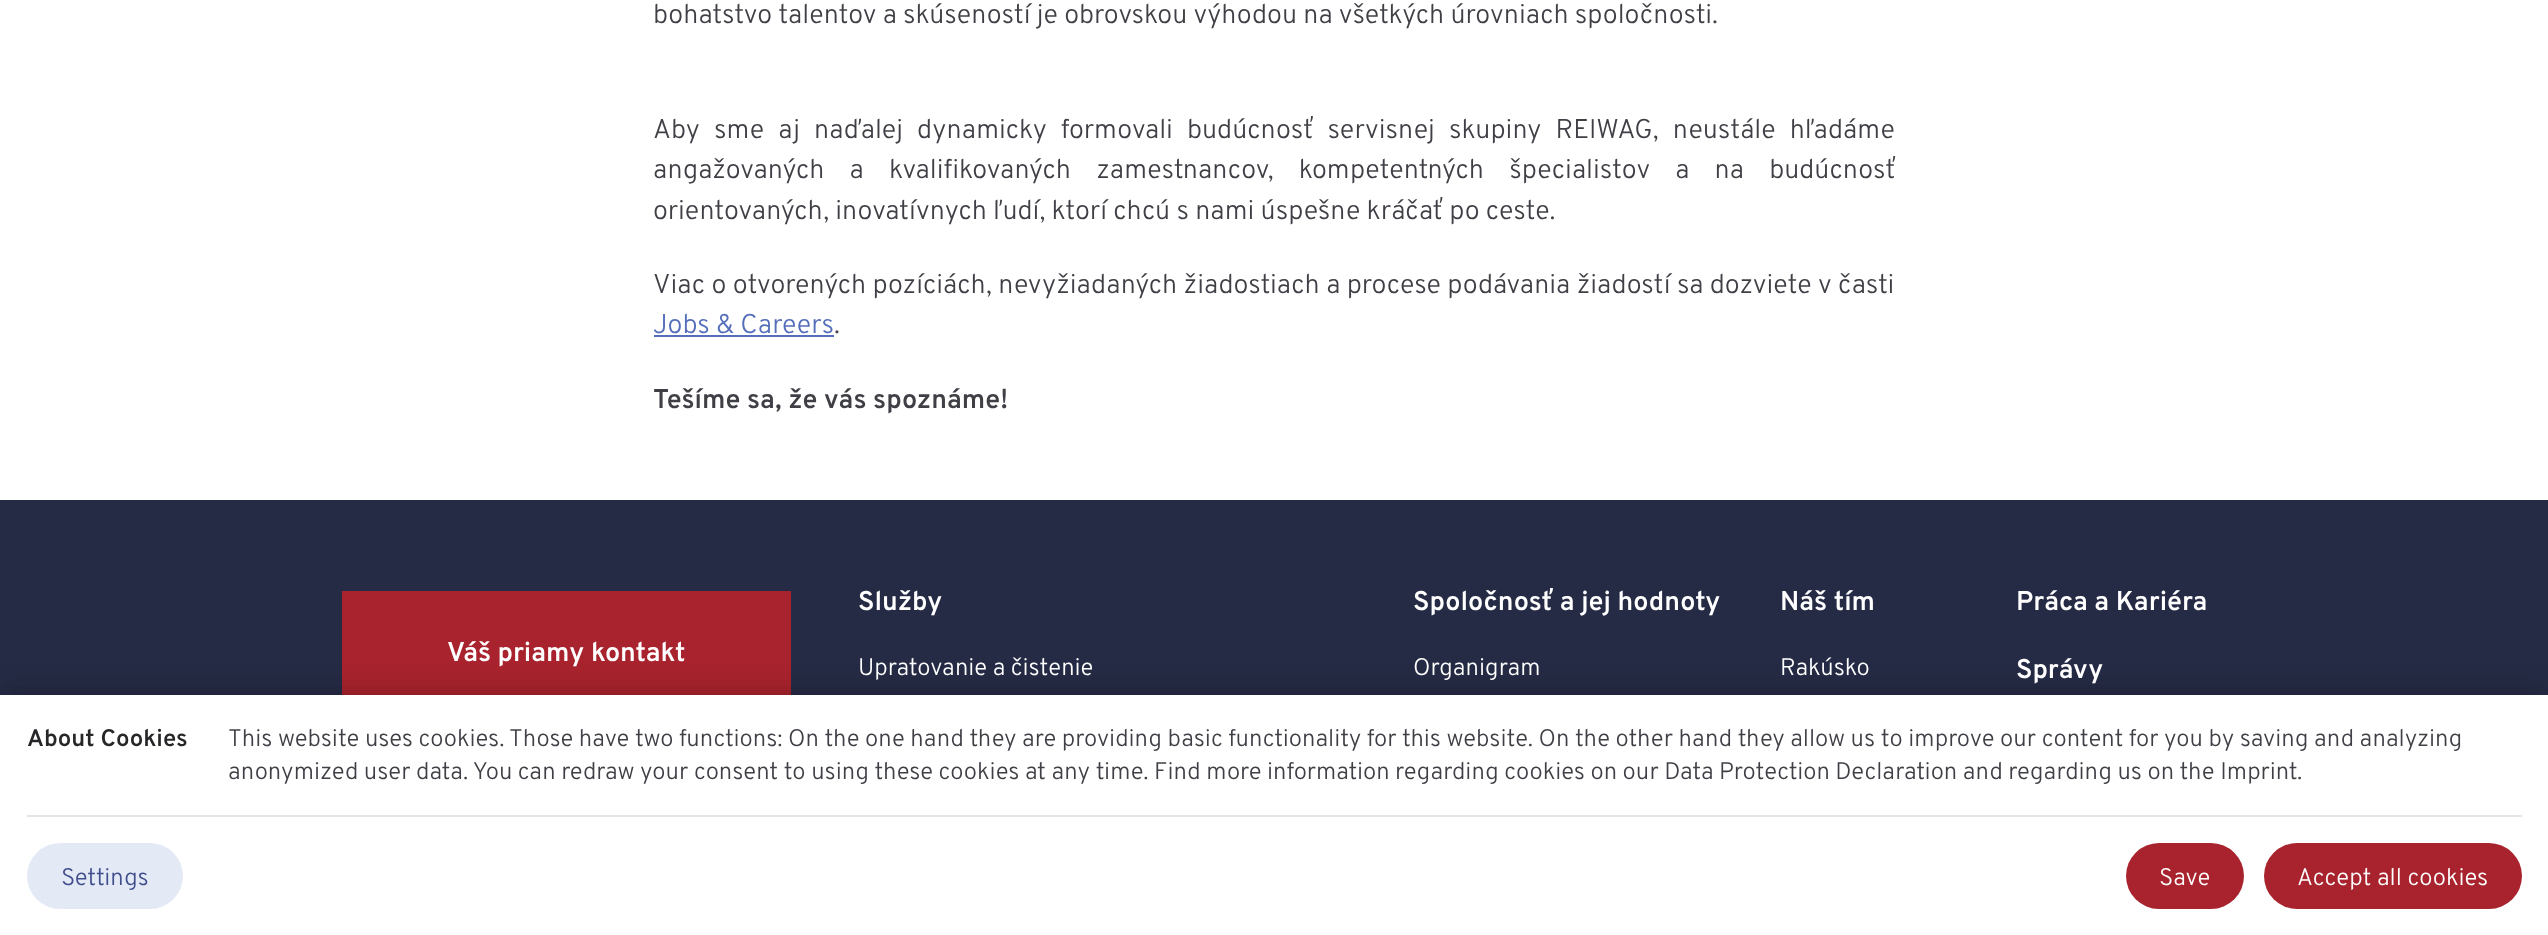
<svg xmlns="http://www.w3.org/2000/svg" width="2548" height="935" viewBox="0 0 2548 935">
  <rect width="100%" height="100%" fill="#fff"/>
  <path d="M654 335h180v2H654z" fill="#556ebb"/>
  <path d="M0 500h2548v195H0z" fill="#262b45"/>
  <path d="M342 591h449v104H342z" fill="#a8232d"/>
  <path d="M3 692h2543v235H3z" fill="#0000000d" filter="blur(4.5px)"/>
  <path d="M5 684h2539v233H5z" fill="#0000001a" filter="blur(11px)"/>
  <path d="M0 695h2548v239H0z" fill="#fff"/>
  <path d="M27 815h2495v2H27z" fill="#e4e4e7"/>
  <rect x="27" y="843" width="156" height="66" rx="33" fill="#e3eaf6"/>
  <rect x="2126" y="843" width="118" height="66" rx="33" fill="#a8232d"/>
  <rect x="2264" y="843" width="258" height="66" rx="33" fill="#a8232d"/>
  <g font-family="Overpass" font-size="27" font-weight="300" fill="#3f3f46">
    <text x="653" y="23">bohatstvo talentov a skúseností je obrovskou výhodou na všetkých úrovniach spoločnosti.</text>
    <text x="653" y="138" word-spacing="7.9">Aby sme aj naďalej dynamicky formovali budúcnosť servisnej skupiny REIWAG, neustále hľadáme</text>
    <text x="653" y="178" word-spacing="19">angažovaných a kvalifikovaných zamestnancov, kompetentných špecialistov a na budúcnosť</text>
    <text x="653" y="219">orientovaných, inovatívnych ľudí, ktorí chcú s nami úspešne kráčať po ceste.</text>
    <text x="653" y="293" word-spacing="0.25">Viac o otvorených pozíciách, nevyžiadaných žiadostiach a procese podávania žiadostí sa dozviete v časti</text>
  </g>
  <text x="653" y="333" font-family="Overpass" font-size="27" font-weight="300" fill="#556ebb">Jobs &amp; Careers</text>
  <text x="834" y="333" font-family="Overpass" font-size="27" font-weight="300" fill="#3f3f46">.</text>
  <text x="653" y="408" font-family="Overpass" font-size="27" font-weight="600" fill="#3f3f46">Tešíme sa, že vás spoznáme!</text>
  <g font-family="Overpass" font-size="27" font-weight="600" fill="#fff">
    <text x="447" y="661">Váš priamy kontakt</text>
    <text x="858" y="610">Služby</text>
  </g>
  <text x="858" y="675" font-family="Overpass" font-size="24" font-weight="300" fill="#fff">Upratovanie a čistenie</text>
  <text x="1413" y="610" font-family="Overpass" font-size="27" font-weight="600" fill="#fff">Spoločnosť a jej hodnoty</text>
  <text x="1413" y="675" font-family="Overpass" font-size="24" font-weight="300" fill="#fff">Organigram</text>
  <text x="1780" y="610" font-family="Overpass" font-size="27" font-weight="600" fill="#fff">Náš tím</text>
  <text x="1780" y="675" font-family="Overpass" font-size="24" font-weight="300" fill="#fff">Rakúsko</text>
  <g font-family="Overpass" font-size="27" font-weight="600" fill="#fff">
    <text x="2016" y="610">Práca a Kariéra</text>
    <text x="2016" y="678">Správy</text>
  </g>
  <text x="27" y="746" font-family="Overpass" font-size="24" font-weight="600" fill="#27272a">About Cookies</text>
  <g font-family="Overpass" font-size="24" font-weight="300" fill="#3f3f46">
    <text x="228" y="746">This website uses cookies. Those have two functions: On the one hand they are providing basic functionality for this website. On the other hand they allow us to improve our content for you by saving and analyzing</text>
    <text x="228" y="779">anonymized user data. You can redraw your consent to using these cookies at any time. Find more information regarding cookies on our Data Protection Declaration and regarding us on the Imprint</text>
    <text x="2297" y="779">.</text>
  </g>
  <text x="61" y="885" font-family="Overpass" font-size="24" font-weight="300" fill="#414e8c">Settings</text>
  <g font-family="Overpass" font-size="24" font-weight="300" fill="#fff">
    <text x="2159" y="885">Save</text>
    <text x="2297" y="885">Accept all cookies</text>
  </g>
</svg>
